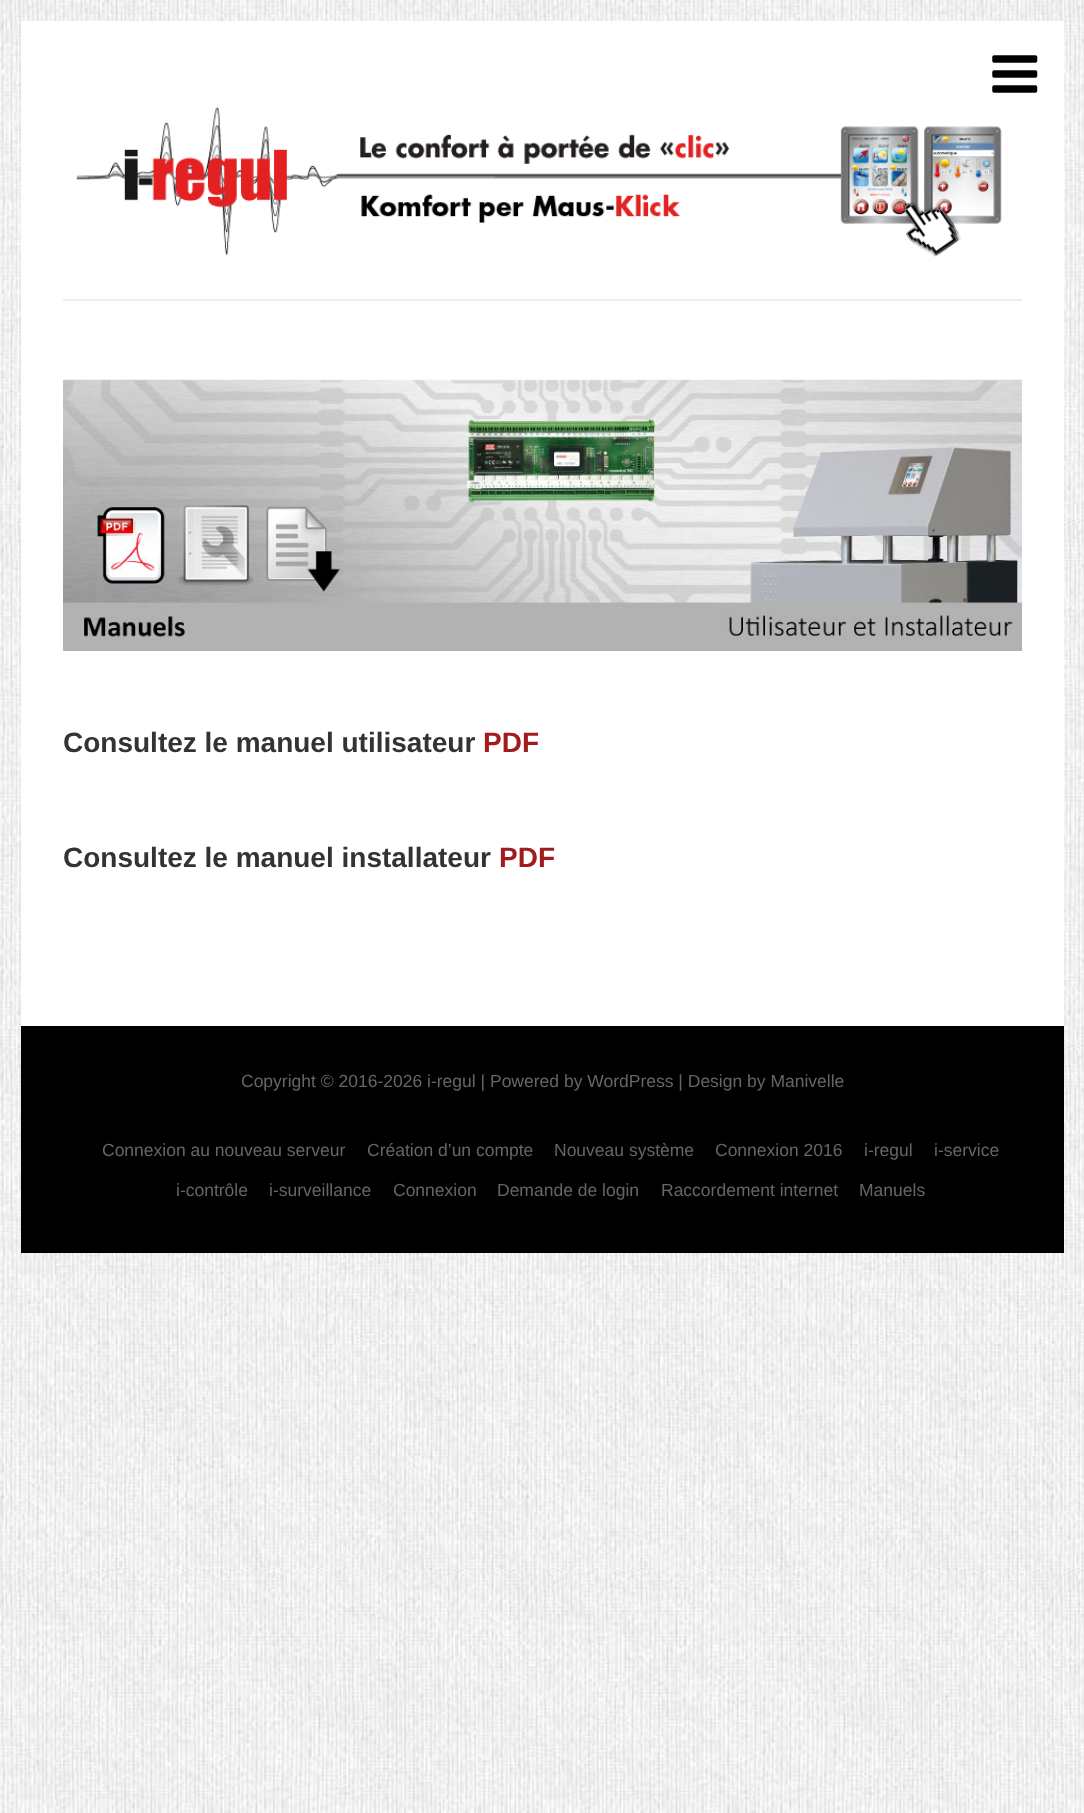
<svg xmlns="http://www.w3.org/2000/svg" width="1084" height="1813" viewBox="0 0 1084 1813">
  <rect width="100%" height="100%" fill="#fff"/>
  <image x="0" y="0" width="1084" height="1813" href="img/1.png"/>
  <path d="M21 21h1043v1005H21z" fill="#fff"/>
  <image x="992" y="55" width="46" height="38" href="img/2.png"/>
  <image x="76" y="107" width="926" height="150" href="img/3.png"/>
  <path d="M63 299h959v2H63z" fill="#eee"/>
  <image x="63" y="379" width="959" height="272" href="img/4.png"/>
  <path d="M21 1026h1043v227H21z" fill="#000"/>
  <text x="63" y="752" font-family="Liberation Sans" font-size="28" font-weight="bold" fill="#333">Consultez le manuel utilisateur</text>
  <text x="483" y="752" font-family="Liberation Sans" font-size="28" font-weight="bold" fill="#a21b1e">PDF</text>
  <text x="63" y="867" font-family="Liberation Sans" font-size="28" font-weight="bold" fill="#333">Consultez le manuel installateur</text>
  <text x="499" y="867" font-family="Liberation Sans" font-size="28" font-weight="bold" fill="#a21b1e">PDF</text>
  <g font-family="Liberation Sans" font-size="17.5" fill="#666">
    <text x="241" y="1087">Copyright © 2016-2026 i-regul | Powered by WordPress | Design by Manivelle</text>
    <text x="102" y="1156">Connexion au nouveau serveur</text>
    <text x="367" y="1156">Création d’un compte</text>
    <text x="554" y="1156">Nouveau système</text>
    <text x="715" y="1156">Connexion 2016</text>
    <text x="864" y="1156">i-regul</text>
    <text x="934" y="1156">i-service</text>
    <text x="176" y="1196">i-contrôle</text>
    <text x="269" y="1196">i-surveillance</text>
    <text x="393" y="1196">Connexion</text>
    <text x="497" y="1196">Demande de login</text>
    <text x="661" y="1196">Raccordement internet</text>
    <text x="859" y="1196">Manuels</text>
  </g>
</svg>
